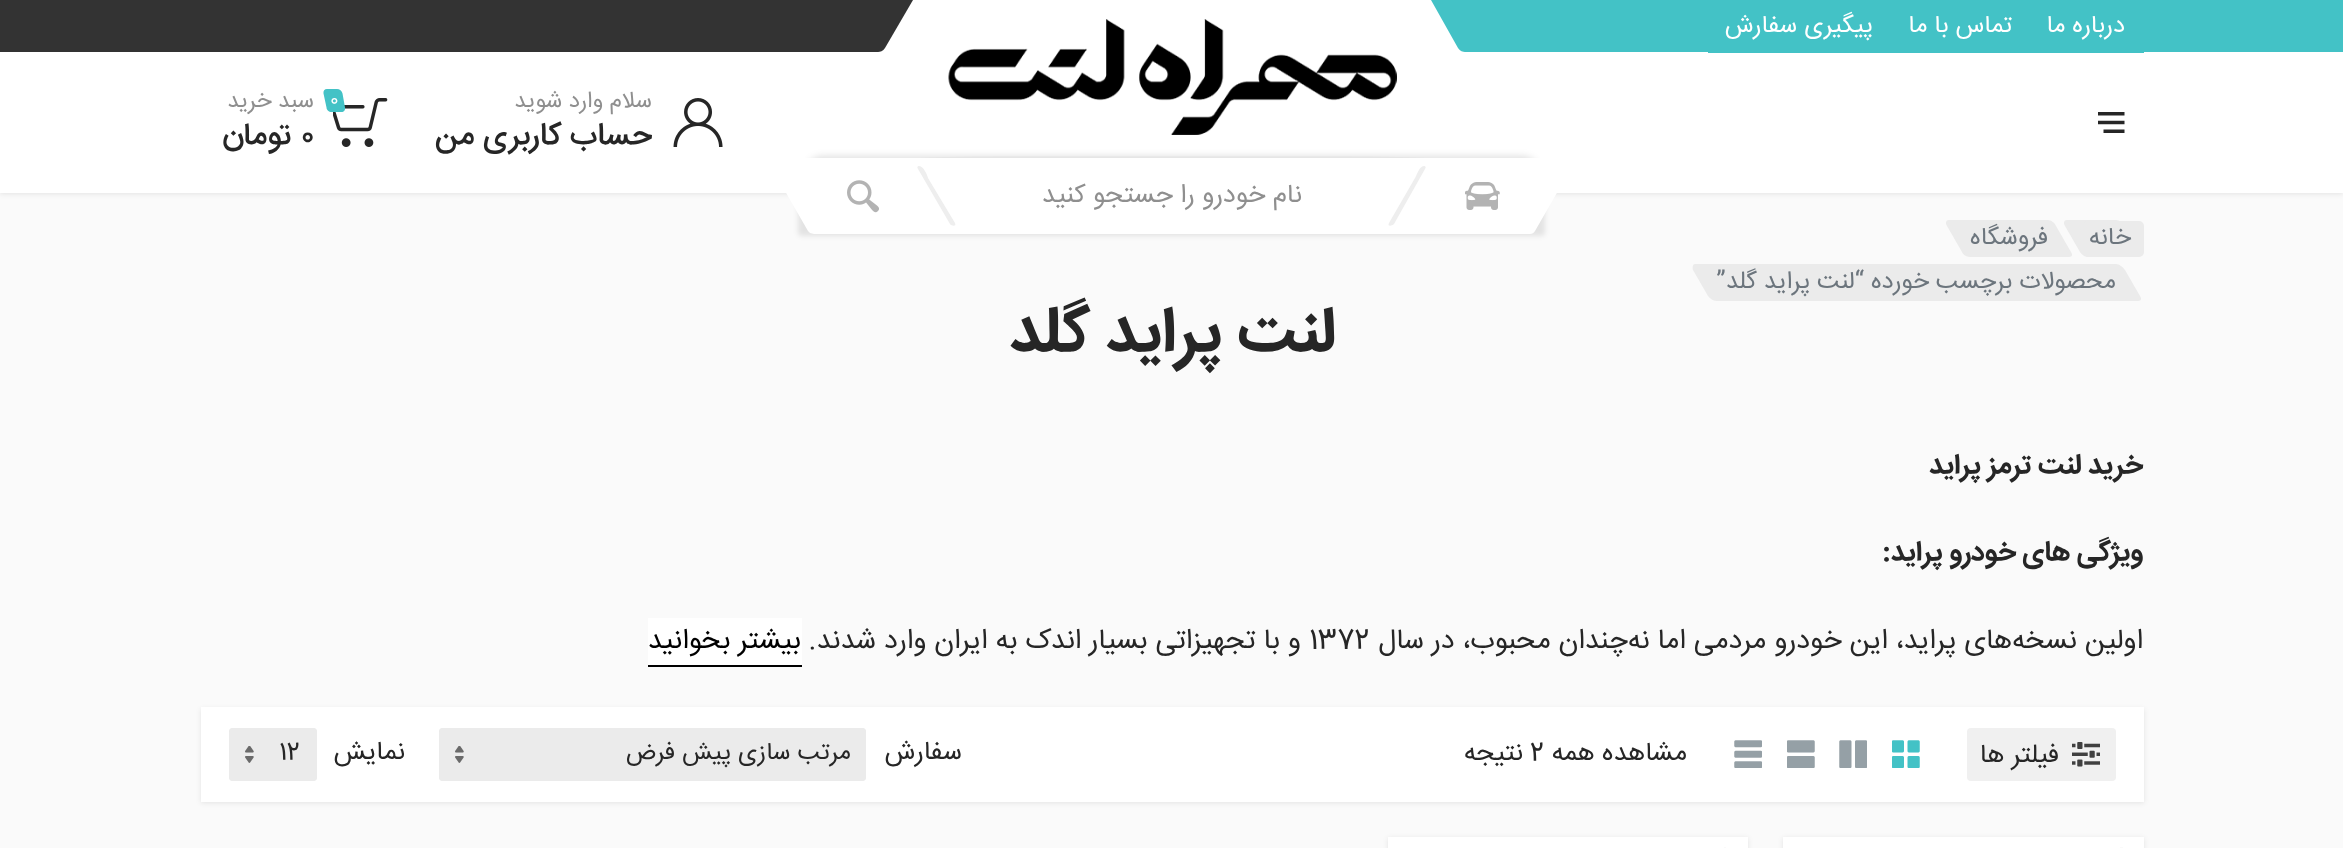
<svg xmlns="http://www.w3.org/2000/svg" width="2343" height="848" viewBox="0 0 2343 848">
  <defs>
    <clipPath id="clip1"><path d="M805 140h735v18H805z"/></clipPath>
    <clipPath id="clip2"><path d="M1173 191h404v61H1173z"/></clipPath>
    <clipPath id="clip3"><path d="M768 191h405v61H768z"/></clipPath>
    <clipPath id="clip4"><path d="M768 191h405v61H768z"/></clipPath>
    <clipPath id="clip5"><path d="M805 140h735v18H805z"/></clipPath>
  </defs>
  <rect width="100%" height="100%" fill="#fafafa"/>
  <path d="M0 2h2343v192H0z" fill="#00000017" filter="blur(2.5px)"/>
  <path d="M0 0h2343v193H0z" fill="#fff"/>
  <path d="M1431 0H2343L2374 52H1465C1463 52 1460 51 1458 48Z" fill="#43c2c6"/>
  <path d="M0 0H913L885 48C883 51 880 52 878 52H-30Z" fill="#333"/>
  <path d="M1708 52h436v1H1708z" fill="#43c2c6"/>
  <image x="948" y="19" width="449" height="116" href="img/1.png"/>
  <image x="673" y="98" width="50" height="49" href="img/2.png"/>
  <image x="333" y="98" width="55" height="49" href="img/3.png"/>
  <path d="M327 89H337C339.5 89 342 91 342.5 93.5L345 107.5C345.5 110 344 112 341.5 112H331.5C329 112 326.5 110 326.5 107.5L323.5 93.5C323 91 324.5 89 327 89Z" fill="#43c2c6"/>
  <image x="2098" y="112" width="27" height="21" href="img/4.png"/>
  <g clip-path="url(#clip1)">
    <path d="M1015 156C899 156 805 164 805 173V175C805 165 899 158 1015 158H1330C1446 158 1540 165 1540 175V173C1540 164 1446 156 1330 156Z" fill="#fafafa"/>
  </g>
  <g clip-path="url(#clip2)">
    <rect x="1141" y="193" width="404" height="43" rx="4" fill="#00000017" filter="blur(2.5px)"/>
  </g>
  <path d="M1154 191H1558L1535 231C1534 233 1532 234 1530 234H1129Z" fill="#fff"/>
  <g clip-path="url(#clip3)">
    <rect x="798" y="193" width="404" height="43" rx="4" fill="#00000017" filter="blur(2.5px)"/>
  </g>
  <g clip-path="url(#clip4)">
    <path d="M785 191H1189L1214 234H814L810 233L808 231Z" fill="#fff"/>
  </g>
  <g clip-path="url(#clip5)">
    <rect x="805" y="156" width="735" height="105" rx="18" fill="#0000001f" filter="blur(3.5px)"/>
  </g>
  <image x="1465" y="182" width="35" height="28" href="img/5.png"/>
  <path d="M1424 166C1426 166 1426 168 1425 169L1394 224C1392 226 1387 227 1389 223L1415 178C1416 177 1419 166 1424 166Z" fill="#eee"/>
  <path d="M919 166C924 166 928 177 928 178L955 223C957 227 951 226 950 224L918 169C917 168 917 166 919 166Z" fill="#eee"/>
  <image x="847" y="180" width="32" height="33" href="img/6.png"/>
  <path d="M2067 220H2116C2119 220 2123 223 2125 226L2140 252C2142 255 2141 257 2138 257H2088C2085 257 2082 255 2080 252L2065 226C2063 223 2064 220 2067 220Z" fill="#ebebeb"/>
  <rect x="2083" y="221" width="61" height="36" rx="5" fill="#ebebeb"/>
  <path d="M1949 220H2048C2051 220 2055 223 2056 226L2071 252C2073 255 2072 257 2069 257H1970C1967 257 1963 255 1962 252L1947 226C1945 223 1946 220 1949 220Z" fill="#ebebeb"/>
  <path d="M1695 264H2116C2119 264 2123 267 2125 270L2140 296C2142 299 2141 301 2138 301H1717C1714 301 1710 299 1708 296L1693 270C1692 267 1693 264 1695 264Z" fill="#ebebeb"/>
  <path d="M648 618h154v47H648z" fill="#fff"/>
  <path d="M648 665h154v2H648z" fill="#000"/>
  <path d="M201 709h1943v94H201z" fill="#00000017" filter="blur(2.5px)"/>
  <path d="M201 707h1943v95H201z" fill="#fff"/>
  <rect x="1967" y="728" width="149" height="53" rx="4" fill="#f0f0f0"/>
  <image x="2072" y="742" width="28" height="25" href="img/7.png"/>
  <image x="1892" y="740" width="28" height="28" href="img/8.png"/>
  <image x="1839" y="740" width="28" height="28" href="img/9.png"/>
  <image x="1787" y="740" width="28" height="28" href="img/10.png"/>
  <image x="1734" y="740" width="28" height="28" href="img/11.png"/>
  <rect x="439" y="728" width="427" height="53" rx="4" fill="#ebebeb"/>
  <image x="455" y="746" width="9" height="17" href="img/12.png"/>
  <rect x="440" y="729" width="425" height="51" rx="3" fill="none" stroke="#ebebeb" stroke-width="2"/>
  <rect x="229" y="728" width="88" height="53" rx="4" fill="#ebebeb"/>
  <image x="245" y="746" width="9" height="17" href="img/12.png"/>
  <rect x="230" y="729" width="86" height="51" rx="3" fill="none" stroke="#ebebeb" stroke-width="2"/>
  <path d="M1783 838h361v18H1783z" fill="#00000017" filter="blur(2.5px)"/>
  <path d="M1783 837h361v11H1783z" fill="#fff"/>
  <path d="M2120 847h3v1H2120z" fill="#fafafa"/>
  <path d="M1388 838h360v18H1388z" fill="#00000017" filter="blur(2.5px)"/>
  <path d="M1388 837h360v11H1388z" fill="#fff"/>
  <path d="M1724 847h2v1H1724z" fill="#fafafa"/>
  <g font-family="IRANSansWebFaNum" font-size="24.5" direction="rtl" fill="#fff">
    <text x="2125" y="32">درباره ما</text>
    <text x="2012" y="32">تماس با ما</text>
    <text x="1873" y="32">پیگیری سفارش</text>
  </g>
  <text x="652" y="107" font-family="IRANSansWebFaNum" font-size="22.75" direction="rtl" fill="#8f8f8f">سلام وارد شوید</text>
  <text x="652" y="144" font-family="IRANSansWebFaNum" font-size="31.5" font-weight="500" direction="rtl" fill="#262626">حساب کاربری من</text>
  <text x="330" y="105" font-family="IRANSansWebFaNum" font-size="18" fill="#fff">0</text>
  <text x="314" y="107" font-family="IRANSansWebFaNum" font-size="22.75" direction="rtl" fill="#8f8f8f">سبد خرید</text>
  <text x="301" y="144" font-family="IRANSansWebFaNum" font-size="31.5" font-weight="500" fill="#262626">۰</text>
  <text x="292" y="144" font-family="IRANSansWebFaNum" font-size="31.5" font-weight="500" direction="rtl" fill="#262626">تومان</text>
  <text x="1302" y="202" font-family="IRANSansWebFaNum" font-size="26.25" direction="rtl" fill="#8f8f8f">نام خودرو را جستجو کنید</text>
  <g font-family="IRANSansWebFaNum" font-size="24.5" direction="rtl" fill="#6c757d">
    <text x="2131" y="244">خانه</text>
    <text x="2048" y="244">فروشگاه</text>
    <text x="2116" y="288">محصولات برچسب خورده</text>
    <text x="1864" y="288">“لنت پراید گلد”</text>
  </g>
  <text x="1335" y="350" font-family="IRANSansWebFaNum" font-size="63" font-weight="bold" direction="rtl" fill="#262626">لنت پراید گلد</text>
  <g font-family="IRANSansWebFaNum" font-size="28" font-weight="bold" direction="rtl" fill="#262626">
    <text x="2143" y="473">خرید لنت ترمز پراید</text>
    <text x="2143" y="560">ویژگی های خودرو پراید:</text>
  </g>
  <text x="2143" y="648" font-family="IRANSansWebFaNum" font-size="28" direction="rtl" fill="#262626">اولین نسخه‌های پراید، این خودرو مردمی اما نه‌چندان محبوب، در سال</text>
  <text x="1309" y="648" font-family="IRANSansWebFaNum" font-size="28" fill="#262626">1372</text>
  <text x="1301" y="648" font-family="IRANSansWebFaNum" font-size="28" direction="rtl" fill="#262626">و با تجهیزاتی بسیار اندک به ایران وارد شدند.</text>
  <text x="801" y="648" font-family="IRANSansWebFaNum" font-size="28" direction="rtl" fill="#000">بیشتر بخوانید</text>
  <g font-family="IRANSansWebFaNum" font-size="26.25" direction="rtl" fill="#262626">
    <text x="2059" y="762">فیلتر ها</text>
    <text x="1687" y="760">مشاهده همه</text>
  </g>
  <text x="1530" y="760" font-family="IRANSansWebFaNum" font-size="26.25" fill="#262626">2</text>
  <g font-family="IRANSansWebFaNum" font-size="26.25" direction="rtl" fill="#262626">
    <text x="1523" y="760">نتیجه</text>
    <text x="962" y="759">سفارش</text>
  </g>
  <text x="851" y="759" font-family="IRANSansWebFaNum" font-size="24.5" direction="rtl" fill="#262626">مرتب سازی پیش فرض</text>
  <text x="405" y="759" font-family="IRANSansWebFaNum" font-size="26.25" direction="rtl" fill="#262626">نمایش</text>
  <text x="279" y="759" font-family="IRANSansWebFaNum" font-size="24.5" fill="#262626">12</text>
</svg>
